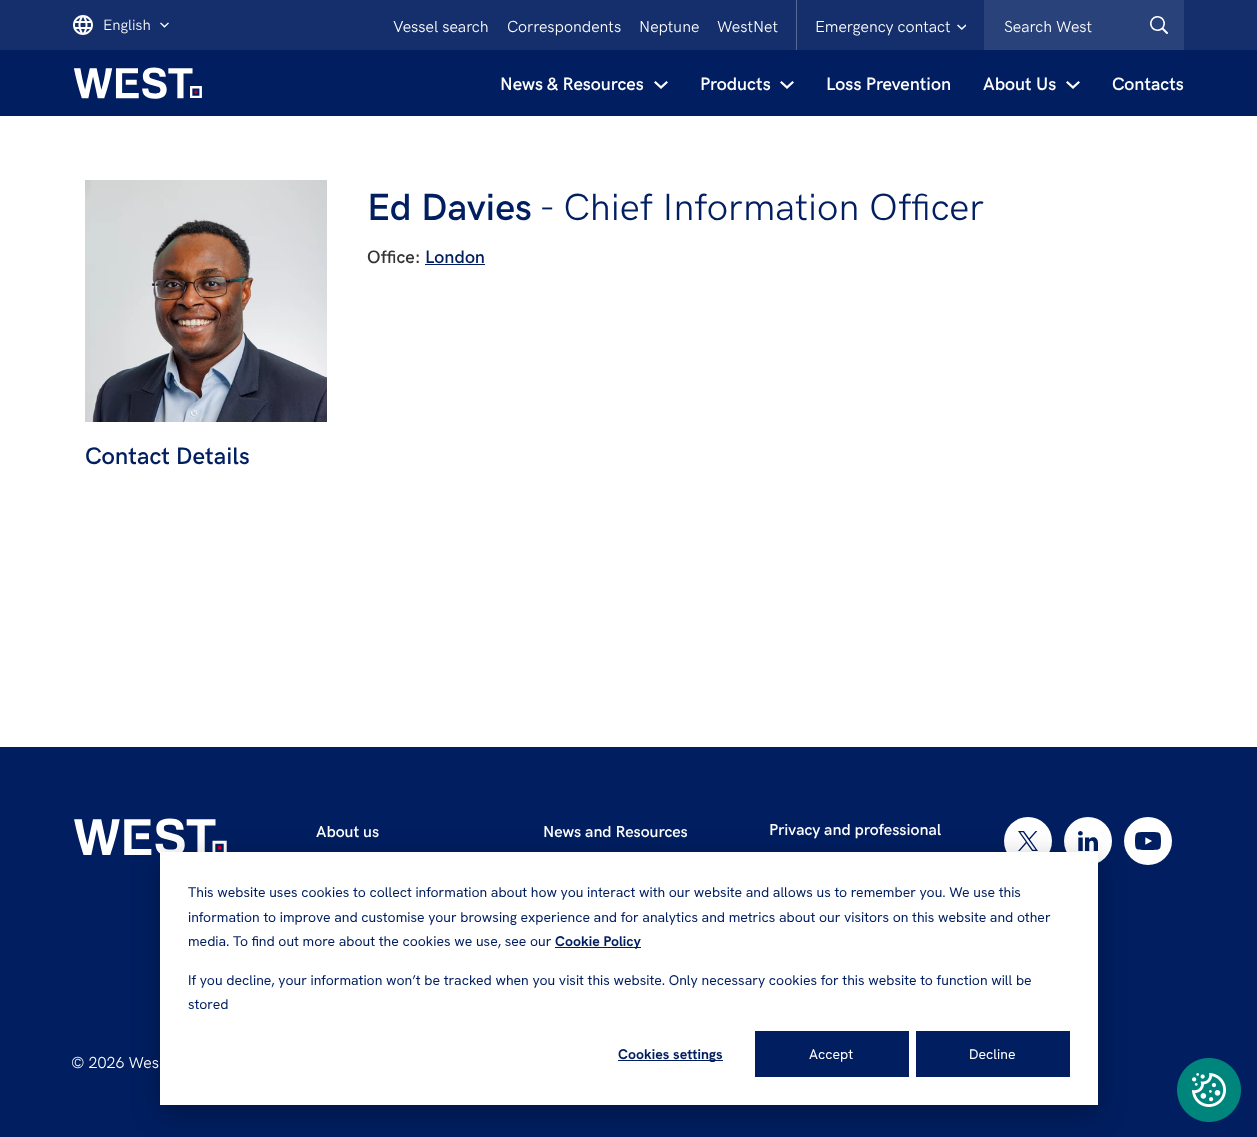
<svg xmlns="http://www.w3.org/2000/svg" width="1257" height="1137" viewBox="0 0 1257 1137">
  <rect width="100%" height="100%" fill="#fff"/>
  <path d="M0 50h1257v66H0z" fill="#001e60"/>
  <path d="M0 0h1257v50H0z" fill="#142f6c"/>
  <image x="73" y="15" width="20" height="20" href="img/1.png"/>
  <image x="160" y="22" width="9" height="6" href="img/2.png"/>
  <image x="74" y="67" width="128" height="32" href="img/3.png"/>
  <path d="M796 0h1v50H796z" fill="#576a95"/>
  <image x="957" y="24" width="9" height="6" href="img/4.png"/>
  <path d="M984 0h200v50H984z" fill="#294279"/>
  <image x="1150" y="16" width="18" height="18" href="img/5.png"/>
  <image x="654" y="81" width="14" height="8" href="img/6.png"/>
  <image x="780" y="81" width="14" height="8" href="img/6.png"/>
  <image x="1066" y="81" width="14" height="8" href="img/6.png"/>
  <path d="M425 264h60v1H425z" fill="#001e60"/>
  <image x="85" y="180" width="242" height="242" href="img/7.png"/>
  <path d="M0 747h1257v390H0z" fill="#001e60"/>
  <image x="74" y="818" width="153" height="37" href="img/8.png"/>
  <circle cx="1028" cy="841" r="24" fill="#fff"/>
  <image x="1018" y="831" width="20" height="20" href="img/9.png"/>
  <circle cx="1088" cy="841" r="24" fill="#fff"/>
  <image x="1078" y="831" width="20" height="20" href="img/10.png"/>
  <circle cx="1148" cy="841" r="24" fill="#fff"/>
  <image x="1135" y="832" width="26" height="18" href="img/11.png"/>
  <image x="1177" y="1058" width="64" height="64" href="img/12.png"/>
  <path d="M160 860h938v253H160z" fill="#00000047" filter="blur(14px)"/>
  <path d="M160 852h938v253H160z" fill="#fff"/>
  <path d="M555 947h86v1H555z" fill="#001e60"/>
  <path d="M618 1060h105v1H618z" fill="#001e60"/>
  <path d="M755 1031h154v46H755z" fill="#001e60"/>
  <path d="M916 1031h154v46H916z" fill="#001e60"/>
  <text x="103" y="30" font-family="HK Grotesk" font-size="15" fill="#fff">English</text>
  <g font-family="HK Grotesk" font-size="16" fill="#fff">
    <text x="393" y="32">Vessel search</text>
    <text x="507" y="32">Correspondents</text>
    <text x="639" y="32">Neptune</text>
    <text x="717" y="32">WestNet</text>
    <text x="815" y="32">Emergency contact</text>
    <text x="1004" y="32">Search West</text>
  </g>
  <g font-family="HK Grotesk" font-size="18" font-weight="600" fill="#fff">
    <text x="500" y="90">News &amp; Resources</text>
    <text x="700" y="90">Products</text>
    <text x="826" y="90">Loss Prevention</text>
    <text x="983" y="90">About Us</text>
    <text x="1112" y="90">Contacts</text>
  </g>
  <text x="367" y="220" font-family="HK Grotesk" font-size="38" font-weight="600" fill="#001e60">Ed Davies</text>
  <text x="539" y="220" font-family="HK Grotesk" font-size="38" fill="#001e60">- Chief Information Officer</text>
  <text x="367" y="263" font-family="HK Grotesk" font-size="18" font-weight="600" fill="#363636">Office:</text>
  <text x="425" y="263" font-family="HK Grotesk" font-size="18" font-weight="600" fill="#001e60">London</text>
  <text x="85" y="464" font-family="HK Grotesk" font-size="24" font-weight="600" fill="#001e60">Contact Details</text>
  <g font-family="HK Grotesk" font-size="16" font-weight="600" fill="#fff">
    <text x="316" y="837">About us</text>
    <text x="543" y="837">News and Resources</text>
    <text x="769" y="835">Privacy and professional</text>
  </g>
  <text x="71" y="1068" font-family="HK Grotesk" font-size="16" fill="#fff">© 2026 Wes</text>
  <g font-family="Hanken Grotesk" font-size="14" fill="#001e60">
    <text x="188" y="897">This website uses cookies to collect information about how you interact with our website and allows us to remember you. We use this</text>
    <text x="188" y="922">information to improve and customise your browsing experience and for analytics and metrics about our visitors on this website and other</text>
    <text x="188" y="946">media. To find out more about the cookies we use, see our</text>
  </g>
  <text x="555" y="946" font-family="Hanken Grotesk" font-size="14" font-weight="bold" fill="#001e60">Cookie Policy</text>
  <g font-family="Hanken Grotesk" font-size="14" fill="#001e60">
    <text x="188" y="985">If you decline, your information won’t be tracked when you visit this website. Only necessary cookies for this website to function will be</text>
    <text x="188" y="1009">stored</text>
  </g>
  <text x="618" y="1059" font-family="Hanken Grotesk" font-size="14" font-weight="bold" fill="#001e60">Cookies settings</text>
  <g font-family="Hanken Grotesk" font-size="14" fill="#fff">
    <text x="809" y="1059">Accept</text>
    <text x="969" y="1059">Decline</text>
  </g>
</svg>
